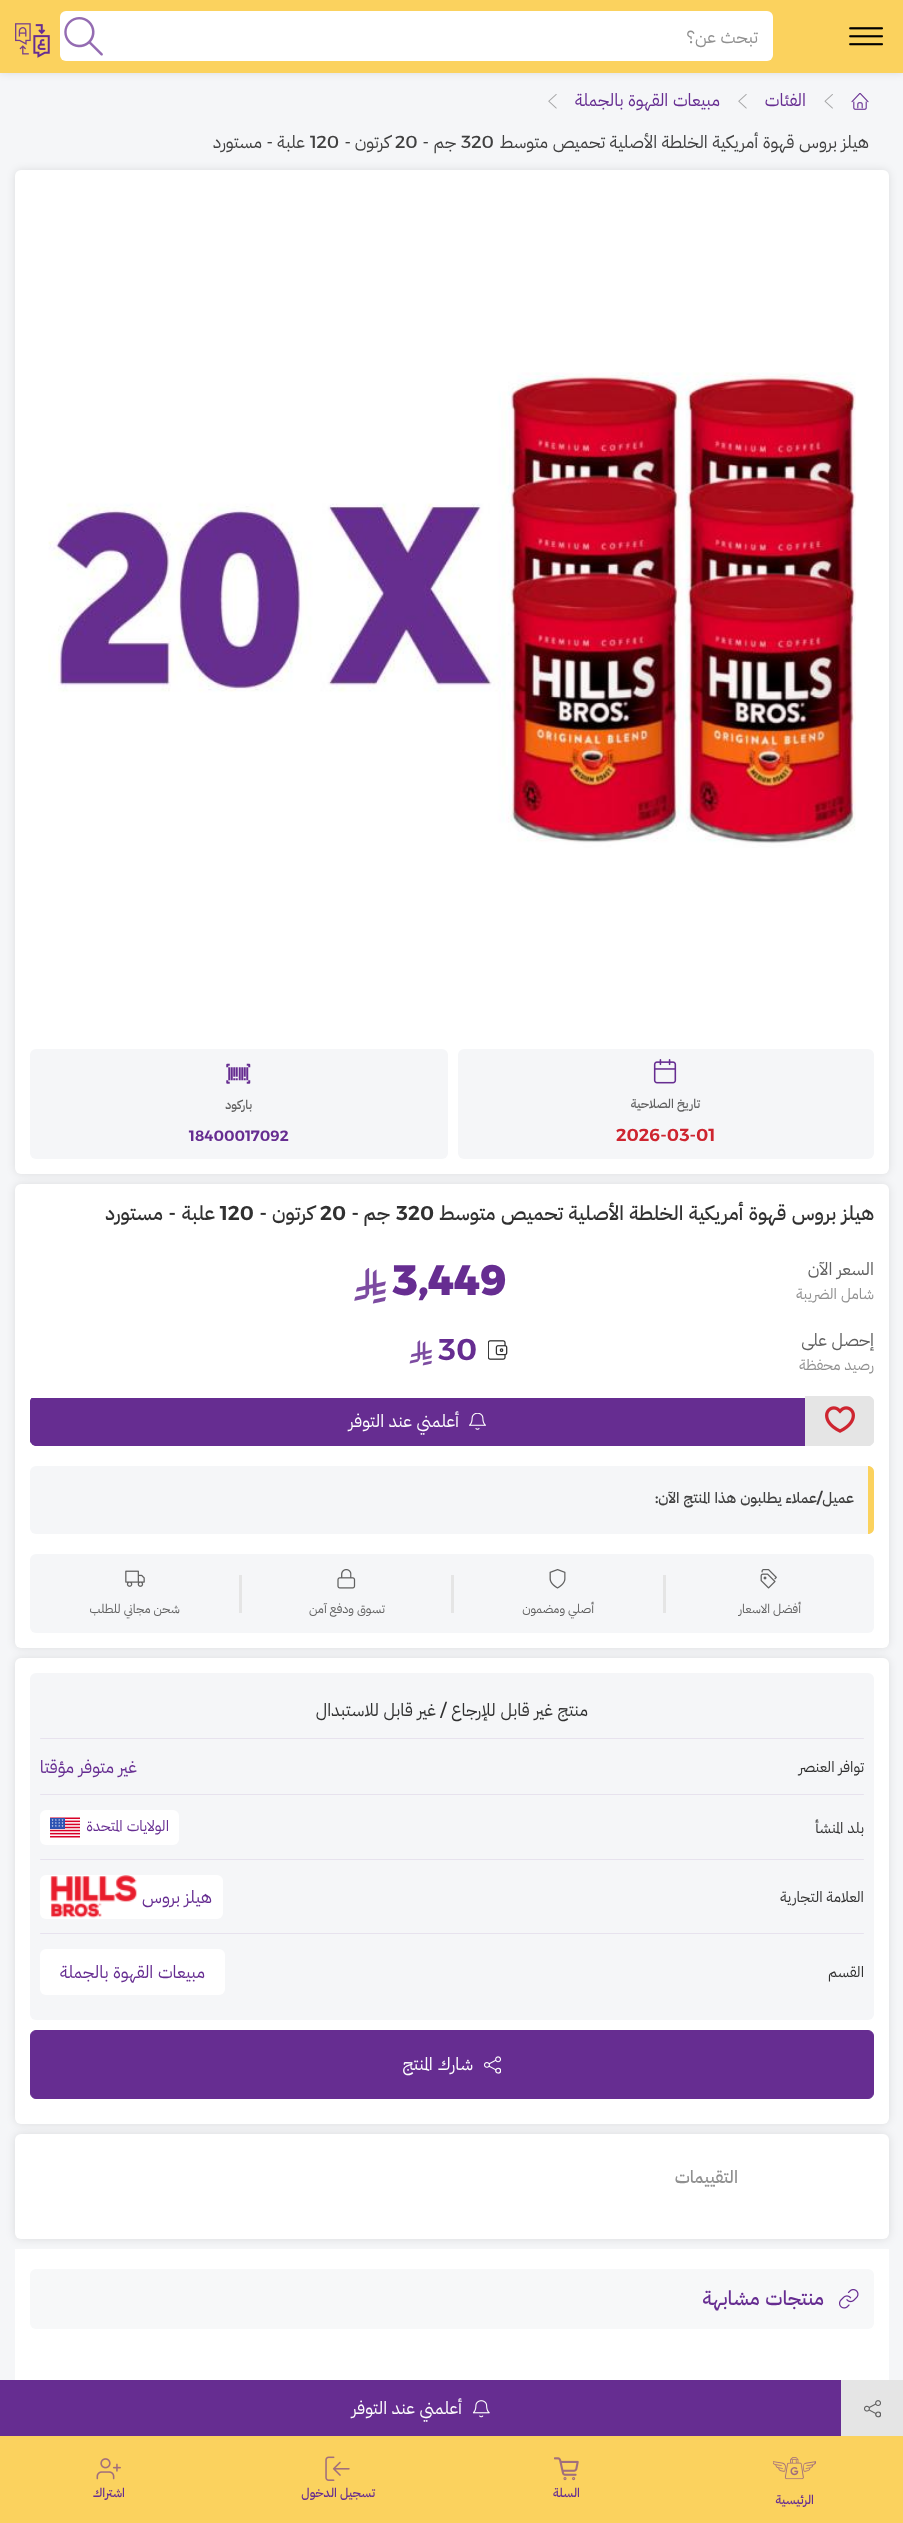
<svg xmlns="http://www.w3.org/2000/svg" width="903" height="2523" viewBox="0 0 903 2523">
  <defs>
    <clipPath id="clip1"><rect x="30" y="1396" width="844" height="50" rx="6"/></clipPath>
  </defs>
  <rect width="100%" height="100%" fill="#f5f6f8"/>
  <path d="M0 0h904v73H0z" fill="#0000001a" filter="blur(4px)"/>
  <path d="M0 0h903v73H0z" fill="#fbd25e"/>
  <image x="849" y="27" width="34" height="19" href="img/1.png"/>
  <rect x="60" y="11" width="713" height="50" rx="6" fill="#fff"/>
  <image x="64" y="17" width="39" height="39" href="img/2.png"/>
  <image x="15" y="23" width="35" height="35" href="img/3.png"/>
  <image x="851" y="93" width="18" height="17" href="img/4.png"/>
  <image x="824" y="94" width="9" height="15" href="img/5.png"/>
  <image x="738" y="94" width="9" height="15" href="img/6.png"/>
  <image x="548" y="94" width="9" height="15" href="img/6.png"/>
  <rect x="15" y="170" width="874" height="1004" rx="6" fill="#0000001a" filter="blur(4px)"/>
  <rect x="15" y="170" width="874" height="1004" rx="6" fill="#fff"/>
  <image x="48" y="372" width="808" height="476" href="img/7.png"/>
  <rect x="458" y="1049" width="416" height="110" rx="6" fill="#f5f6f8"/>
  <image x="653" y="1059" width="24" height="25" href="img/8.png"/>
  <rect x="30" y="1049" width="418" height="110" rx="6" fill="#f5f6f8"/>
  <image x="226" y="1063" width="25" height="21" href="img/9.png"/>
  <rect x="15" y="1184" width="874" height="464" rx="6" fill="#0000001a" filter="blur(4px)"/>
  <rect x="15" y="1184" width="874" height="464" rx="6" fill="#fff"/>
  <image x="354" y="1268" width="32" height="36" href="img/10.png"/>
  <image x="488" y="1340" width="20" height="20" href="img/11.png"/>
  <image x="409" y="1340" width="23" height="26" href="img/12.png"/>
  <path d="M805 1396H868C871.5 1396 874 1398.5 874 1402V1440C874 1443.5 871.5 1446 868 1446H805Z" fill="#e5e5e5"/>
  <path d="M805 1396V1446H868C869 1446 870 1446 871 1445H806V1397H871L868 1396ZM874 1402L873 1399V1443C874 1442 874 1441 874 1440Z" fill="#e5e5e5" fill-rule="evenodd"/>
  <image x="825" y="1406" width="30" height="27" href="img/13.png"/>
  <g clip-path="url(#clip1)">
    <path d="M30 1398H805V1446H36C32.5 1446 30 1443.5 30 1440Z" fill="#662d91"/>
  </g>
  <path d="M31 1399H804V1445H33L36 1446H805V1398H32C31 1399 30 1400 30 1402V1440C30 1441 30 1442 31 1443Z" fill="#662d91"/>
  <image x="469" y="1413" width="17" height="17" href="img/14.png"/>
  <rect x="30" y="1466" width="844" height="68" rx="6" fill="#f5f6f8"/>
  <path d="M868 1466C871.5 1466 874 1468.5 874 1472V1528C874 1531.5 871.5 1534 868 1534Z" fill="#fbd25e"/>
  <rect x="30" y="1554" width="844" height="79" rx="6" fill="#f5f6f8"/>
  <image x="760" y="1569" width="17" height="20" href="img/15.png"/>
  <path d="M663 1575h3v38H663z" fill="#e5e5e5"/>
  <image x="549" y="1569" width="17" height="20" href="img/16.png"/>
  <path d="M451 1575h3v38H451z" fill="#e5e5e5"/>
  <image x="337" y="1569" width="19" height="20" href="img/17.png"/>
  <path d="M239 1575h3v38H239z" fill="#e5e5e5"/>
  <image x="125" y="1570" width="20" height="17" href="img/18.png"/>
  <rect x="15" y="1658" width="874" height="466" rx="6" fill="#0000001a" filter="blur(4px)"/>
  <rect x="15" y="1658" width="874" height="466" rx="6" fill="#fff"/>
  <rect x="30" y="1673" width="844" height="347" rx="6" fill="#f5f6f8"/>
  <rect x="40" y="1738" width="824" height="1" rx="0.5" fill="#e7e2ee"/>
  <rect x="40" y="1794" width="824" height="1" rx="0.5" fill="#e7e2ee"/>
  <rect x="40" y="1810" width="139" height="35" rx="6" fill="#fff"/>
  <image x="50" y="1817" width="30" height="21" href="img/19.png"/>
  <rect x="40" y="1859" width="824" height="1" rx="0.5" fill="#e7e2ee"/>
  <rect x="40" y="1875" width="183" height="44" rx="6" fill="#fff"/>
  <image x="50" y="1875" width="88" height="43" href="img/20.png"/>
  <rect x="40" y="1933" width="824" height="1" rx="0.5" fill="#e7e2ee"/>
  <rect x="40" y="1949" width="185" height="46" rx="6" fill="#fff"/>
  <rect x="30.5" y="2030.5" width="843" height="68" rx="5.5" fill="#662d91" stroke="#662d91"/>
  <image x="484" y="2056" width="17" height="18" href="img/21.png"/>
  <path d="M15 2249h874v131H15z" fill="#fff"/>
  <rect x="15" y="2134" width="874" height="105" rx="6" fill="#0000001c" filter="blur(5px)"/>
  <rect x="15" y="2134" width="874" height="105" rx="6" fill="#fff"/>
  <rect x="30" y="2269" width="844" height="60" rx="6" fill="#f7f8f9"/>
  <image x="839" y="2289" width="20" height="20" href="img/22.png"/>
  <path d="M841 2380h62v56H841z" fill="#e5e5e5"/>
  <image x="864" y="2400" width="17" height="18" href="img/23.png"/>
  <path d="M0 2380h841v56H0z" fill="#662d91"/>
  <image x="473" y="2400" width="17" height="18" href="img/24.png"/>
  <path d="M0 2436h903v87H0z" fill="#fbd25e"/>
  <image x="554" y="2457" width="25" height="24" href="img/25.png"/>
  <image x="325" y="2456" width="25" height="25" href="img/26.png"/>
  <image x="96" y="2458" width="25" height="22" href="img/27.png"/>
  <image x="773" y="2457" width="43" height="23" href="img/28.png"/>
  <text x="758" y="43" word-spacing="0.5" font-family="IBM Plex Sans Arabic" font-size="17.5" direction="rtl" fill="#909090">تبحث عن؟</text>
  <g font-family="IBM Plex Sans Arabic" font-size="17.5" direction="rtl" fill="#662d91">
    <text x="806" y="106">الفئات</text>
    <text x="720" y="106" word-spacing="0.5">مبيعات القهوة بالجملة</text>
  </g>
  <text x="869" y="148" word-spacing="0.5" font-family="IBM Plex Sans Arabic" font-size="17.5" direction="rtl" fill="#404040">هيلز بروس قهوة أمريكية الخلطة الأصلية تحميص متوسط</text>
  <text x="461" y="148" font-family="Alexandria" font-size="17.5" fill="#404040">320</text>
  <text x="456" y="148" font-family="IBM Plex Sans Arabic" font-size="17.5" direction="rtl" fill="#404040">جم</text>
  <text x="429" y="148" font-family="Alexandria" font-size="17.5" direction="rtl" fill="#404040">-</text>
  <text x="395" y="148" font-family="Alexandria" font-size="17.5" fill="#404040">20</text>
  <text x="390" y="148" font-family="IBM Plex Sans Arabic" font-size="17.5" direction="rtl" fill="#404040">كرتون</text>
  <text x="351" y="148" font-family="Alexandria" font-size="17.5" direction="rtl" fill="#404040">-</text>
  <text x="310" y="148" font-family="Alexandria" font-size="17.5" fill="#404040">120</text>
  <text x="305" y="148" font-family="IBM Plex Sans Arabic" font-size="17.5" direction="rtl" fill="#404040">علبة</text>
  <text x="273" y="148" font-family="Alexandria" font-size="17.5" direction="rtl" fill="#404040">-</text>
  <text x="262" y="148" font-family="IBM Plex Sans Arabic" font-size="17.5" direction="rtl" fill="#404040">مستورد</text>
  <text x="700" y="1108" font-family="IBM Plex Sans Arabic" font-size="12.5" font-weight="500" direction="rtl" fill="#606060">تاريخ الصلاحية</text>
  <text x="616" y="1141" font-family="Alexandria" font-size="17.5" font-weight="600" fill="#ce2530">2026-03-01</text>
  <text x="252" y="1109" font-family="IBM Plex Sans Arabic" font-size="12.5" font-weight="500" direction="rtl" fill="#606060">باركود</text>
  <text x="189" y="1141" font-family="Alexandria" font-size="15" font-weight="600" fill="#662d91">18400017092</text>
  <text x="874" y="1220" word-spacing="0.75" font-family="IBM Plex Sans Arabic" font-size="20" font-weight="500" direction="rtl" fill="#303030">هيلز بروس قهوة أمريكية الخلطة الأصلية تحميص متوسط</text>
  <text x="396" y="1220" font-family="Alexandria" font-size="20" font-weight="600" fill="#303030">320</text>
  <text x="390" y="1220" font-family="IBM Plex Sans Arabic" font-size="20" font-weight="500" direction="rtl" fill="#303030">جم</text>
  <text x="359" y="1220" font-family="Alexandria" font-size="20" font-weight="600" direction="rtl" fill="#303030">-</text>
  <text x="320" y="1220" font-family="Alexandria" font-size="20" font-weight="600" fill="#303030">20</text>
  <text x="314" y="1220" font-family="IBM Plex Sans Arabic" font-size="20" font-weight="500" direction="rtl" fill="#303030">كرتون</text>
  <text x="267" y="1220" font-family="Alexandria" font-size="20" font-weight="600" direction="rtl" fill="#303030">-</text>
  <text x="220" y="1220" font-family="Alexandria" font-size="20" font-weight="600" fill="#303030">120</text>
  <text x="215" y="1220" font-family="IBM Plex Sans Arabic" font-size="20" font-weight="500" direction="rtl" fill="#303030">علبة</text>
  <text x="176" y="1220" font-family="Alexandria" font-size="20" font-weight="600" direction="rtl" fill="#303030">-</text>
  <text x="163" y="1220" font-family="IBM Plex Sans Arabic" font-size="20" font-weight="500" direction="rtl" fill="#303030">مستورد</text>
  <text x="874" y="1275" word-spacing="0.5" font-family="IBM Plex Sans Arabic" font-size="17.5" direction="rtl" fill="#606060">السعر الآن</text>
  <text x="874" y="1299" word-spacing="0.5" font-family="IBM Plex Sans Arabic" font-size="15" direction="rtl" fill="#909090">شامل الضريبة</text>
  <text x="392" y="1295" font-family="Alexandria" font-size="42.5" font-weight="800" fill="#662d91">3,449</text>
  <text x="874" y="1346" word-spacing="0.5" font-family="IBM Plex Sans Arabic" font-size="17.5" direction="rtl" fill="#606060">إحصل على</text>
  <text x="874" y="1370" word-spacing="0.5" font-family="IBM Plex Sans Arabic" font-size="15" direction="rtl" fill="#909090">رصيد محفظة</text>
  <text x="438" y="1360" font-family="Alexandria" font-size="30" font-weight="600" fill="#662d91">30</text>
  <text x="459" y="1427" word-spacing="0.5" font-family="IBM Plex Sans Arabic" font-size="17.5" direction="rtl" fill="#fff">أعلمني عند التوفر</text>
  <text x="822" y="1503" font-family="Alexandria" font-size="15" font-weight="600" direction="rtl" fill="#404040">/</text>
  <g font-family="IBM Plex Sans Arabic" font-size="15" font-weight="500" direction="rtl" fill="#404040">
    <text x="854" y="1503">عميل</text>
    <text x="817" y="1503" word-spacing="0.5">عملاء يطلبون هذا المنتج الآن</text>
  </g>
  <text x="655" y="1503" font-family="Alexandria" font-size="15" font-weight="600" fill="#404040">:</text>
  <g font-family="IBM Plex Sans Arabic" font-size="12.5" direction="rtl" fill="#606060">
    <text x="801" y="1613">أفضل الاسعار</text>
    <text x="594" y="1613">أصلي ومضمون</text>
    <text x="385" y="1613">تسوق ودفع آمن</text>
    <text x="180" y="1613">شحن مجاني للطلب</text>
  </g>
  <text x="588" y="1716" word-spacing="0.5" font-family="IBM Plex Sans Arabic" font-size="17.5" direction="rtl" fill="#303030">منتج غير قابل للإرجاع</text>
  <text x="446" y="1716" font-family="Alexandria" font-size="17.5" direction="rtl" fill="#303030">/</text>
  <text x="436" y="1716" word-spacing="0.5" font-family="IBM Plex Sans Arabic" font-size="17.5" direction="rtl" fill="#303030">غير قابل للاستبدال</text>
  <text x="864" y="1772" word-spacing="0.5" font-family="IBM Plex Sans Arabic" font-size="15" direction="rtl" fill="#303030">توافر العنصر</text>
  <text x="137" y="1773" word-spacing="0.5" font-family="IBM Plex Sans Arabic" font-size="17.5" direction="rtl" fill="#662d91">غير متوفر مؤقتا</text>
  <text x="864" y="1833" word-spacing="0.5" font-family="IBM Plex Sans Arabic" font-size="15" direction="rtl" fill="#303030">بلد المنشأ</text>
  <text x="169" y="1831" word-spacing="0.5" font-family="IBM Plex Sans Arabic" font-size="15" direction="rtl" fill="#662d91">الولايات المتحدة</text>
  <text x="864" y="1902" word-spacing="0.5" font-family="IBM Plex Sans Arabic" font-size="15" direction="rtl" fill="#303030">العلامة التجارية</text>
  <text x="212" y="1903" word-spacing="0.5" font-family="IBM Plex Sans Arabic" font-size="17.5" direction="rtl" fill="#662d91">هيلز بروس</text>
  <text x="864" y="1977" font-family="IBM Plex Sans Arabic" font-size="15" direction="rtl" fill="#303030">القسم</text>
  <text x="205" y="1978" word-spacing="0.5" font-family="IBM Plex Sans Arabic" font-size="17.5" direction="rtl" fill="#662d91">مبيعات القهوة بالجملة</text>
  <text x="473" y="2070" word-spacing="0.5" font-family="IBM Plex Sans Arabic" font-size="17.5" direction="rtl" fill="#fff">شارك المنتج</text>
  <text x="738" y="2183" font-family="IBM Plex Sans Arabic" font-size="17.5" font-weight="500" direction="rtl" fill="#909090">التقييمات</text>
  <text x="824" y="2305" word-spacing="0.75" font-family="IBM Plex Sans Arabic" font-size="20" font-weight="500" direction="rtl" fill="#662d91">منتجات مشابهة</text>
  <text x="462" y="2414" word-spacing="0.5" font-family="IBM Plex Sans Arabic" font-size="17.5" direction="rtl" fill="#fff">أعلمني عند التوفر</text>
  <g font-family="IBM Plex Sans Arabic" font-size="12.5" font-weight="500" direction="rtl" fill="#662d91">
    <text x="580" y="2497">السلة</text>
    <text x="375" y="2497">تسجيل الدخول</text>
    <text x="125" y="2497">اشتراك</text>
    <text x="814" y="2504">الرئيسية</text>
  </g>
</svg>
